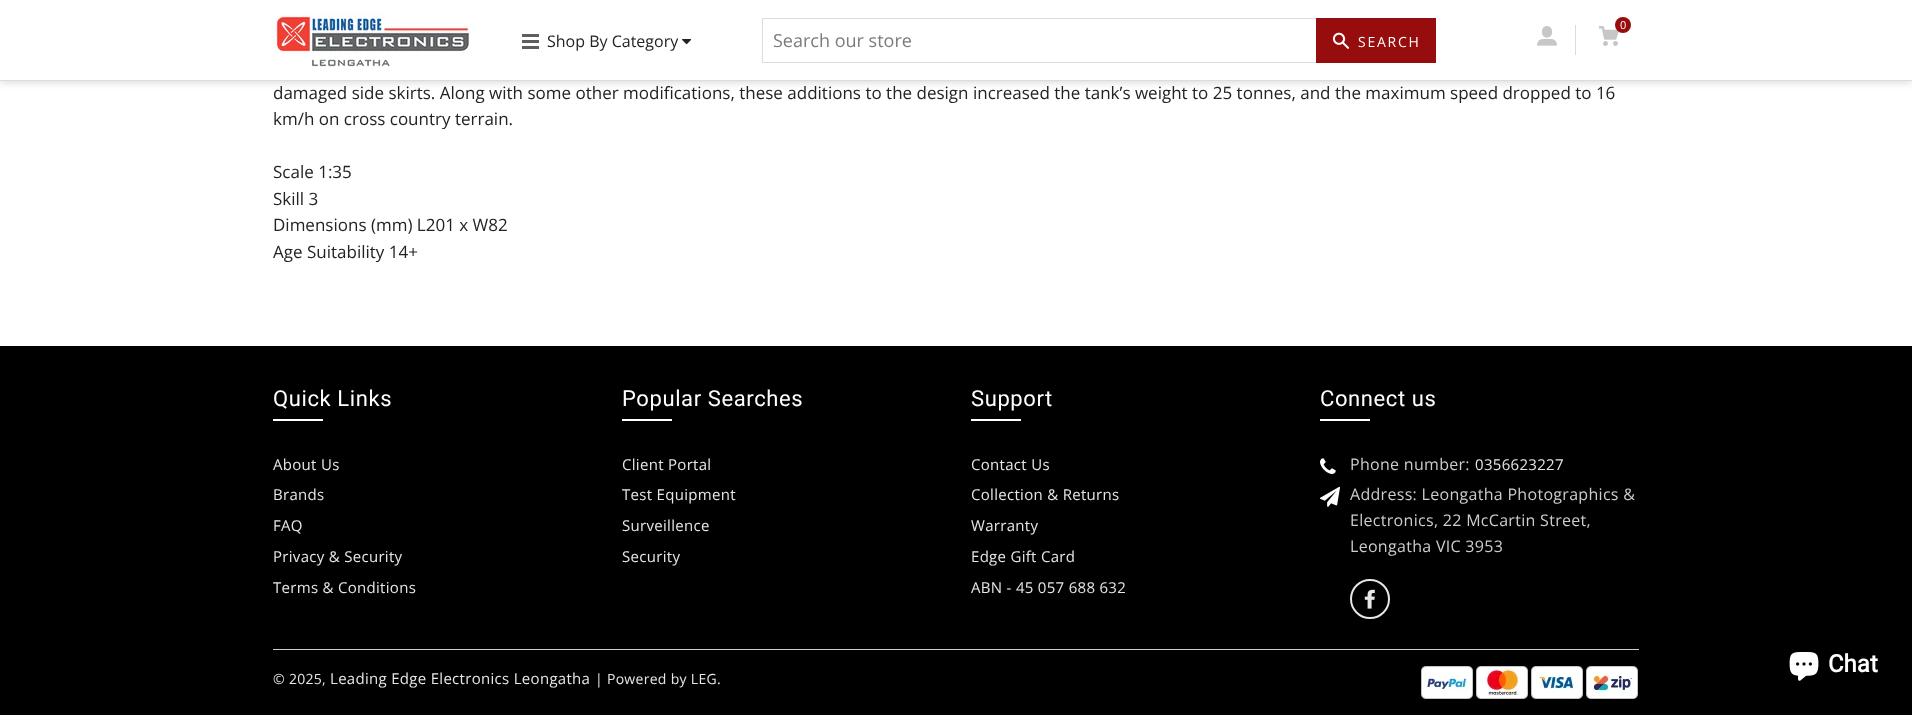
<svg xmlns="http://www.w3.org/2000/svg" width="1912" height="715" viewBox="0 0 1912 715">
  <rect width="100%" height="100%" fill="#fff"/>
  <path d="M0 0h1912v81H0z" fill="#00000033" filter="blur(5px)"/>
  <path d="M0 0h1912v80H0z" fill="#fff"/>
  <path d="M0 80h1912v1H0z" fill="#dcdcdc"/>
  <image x="1537" y="26" width="20" height="20" href="img/1.png"/>
  <path d="M1575 25h1v30H1575z" fill="#dcdcdc"/>
  <image x="1599" y="26" width="20" height="20" href="img/2.png"/>
  <circle cx="1623" cy="25" r="8" fill="#970c0c"/>
  <image x="273" y="13" width="200" height="54" href="img/3.png"/>
  <path d="M522 34h17v3H522z" fill="#5e5e5e"/>
  <path d="M522 40h17v3H522z" fill="#5e5e5e"/>
  <path d="M522 46h17v3H522z" fill="#5e5e5e"/>
  <image x="682" y="39" width="10" height="6" href="img/4.png"/>
  <path d="M762 18h554v1H762z" fill="#dcdcdc"/>
  <path d="M762 62h554v1H762z" fill="#dcdcdc"/>
  <path d="M762 18h1v45H762z" fill="#dcdcdc"/>
  <path d="M1316 18h120v45H1316z" fill="#970c0c"/>
  <image x="1332" y="32" width="18" height="17" href="img/5.png"/>
  <path d="M0 346h1912v369H0z" fill="#000"/>
  <path d="M273 419h50v2H273z" fill="#fff"/>
  <path d="M622 419h50v2H622z" fill="#fff"/>
  <path d="M971 419h50v2H971z" fill="#fff"/>
  <path d="M1320 419h50v2H1320z" fill="#fff"/>
  <image x="1320" y="458" width="16" height="16" href="img/6.png"/>
  <image x="1320" y="486" width="20" height="21" href="img/7.png"/>
  <circle cx="1370" cy="599" r="19" fill="none" stroke="#e6e6e6" stroke-width="2"/>
  <image x="1364" y="589" width="11" height="20" href="img/8.png"/>
  <path d="M273 649h1366v1H273z" fill="#ccc"/>
  <image x="1421" y="666" width="217" height="33" href="img/9.png"/>
  <image x="1789" y="652" width="30" height="29" href="img/10.png"/>
  <text x="1620" y="29" font-family="Open Sans" font-size="11" fill="#fff">0</text>
  <text x="547" y="47" font-family="Open Sans" font-size="16" fill="#222323">Shop By Category</text>
  <text x="773" y="47" font-family="Open Sans" font-size="18" fill="#7a7b7b">Search our store</text>
  <text x="1358" y="47" font-family="Open Sans" font-size="14" letter-spacing="1.75" fill="#fff">SEARCH</text>
  <g font-family="Open Sans" font-size="17" fill="#222323">
    <text x="273" y="99">damaged side skirts. Along with some other modifications, these additions to the design increased the tank’s weight to 25 tonnes, and the maximum speed dropped to 16</text>
    <text x="273" y="125">km/h on cross country terrain.</text>
    <text x="273" y="178">Scale 1:35</text>
    <text x="273" y="205">Skill 3</text>
    <text x="273" y="231">Dimensions (mm) L201 x W82</text>
    <text x="273" y="258">Age Suitability 14+</text>
  </g>
  <text x="273" y="406" font-family="Roboto" font-size="22" letter-spacing="0.6" fill="#fff">Quick Links</text>
  <g font-family="Open Sans" font-size="15" letter-spacing="0.3" fill="#e6e6e6">
    <text x="273" y="470">About Us</text>
    <text x="273" y="500">Brands</text>
    <text x="273" y="531">FAQ</text>
    <text x="273" y="562">Privacy &amp; Security</text>
    <text x="273" y="593">Terms &amp; Conditions</text>
  </g>
  <text x="622" y="406" font-family="Roboto" font-size="22" letter-spacing="0.6" fill="#fff">Popular Searches</text>
  <g font-family="Open Sans" font-size="15" letter-spacing="0.3" fill="#e6e6e6">
    <text x="622" y="470">Client Portal</text>
    <text x="622" y="500">Test Equipment</text>
    <text x="622" y="531">Surveillence</text>
    <text x="622" y="562">Security</text>
  </g>
  <text x="971" y="406" font-family="Roboto" font-size="22" letter-spacing="0.6" fill="#fff">Support</text>
  <g font-family="Open Sans" font-size="15" letter-spacing="0.3" fill="#e6e6e6">
    <text x="971" y="470">Contact Us</text>
    <text x="971" y="500">Collection &amp; Returns</text>
    <text x="971" y="531">Warranty</text>
    <text x="971" y="562">Edge Gift Card</text>
    <text x="971" y="593">ABN - 45 057 688 632</text>
  </g>
  <text x="1320" y="406" font-family="Roboto" font-size="22" letter-spacing="0.6" fill="#fff">Connect us</text>
  <text x="1350" y="470" font-family="Open Sans" font-size="16" letter-spacing="0.3" fill="#ccc">Phone number:</text>
  <text x="1475" y="470" font-family="Open Sans" font-size="15" letter-spacing="0.3" fill="#e6e6e6">0356623227</text>
  <g font-family="Open Sans" font-size="16" letter-spacing="0.3" fill="#ccc">
    <text x="1350" y="500">Address: Leongatha Photographics &amp;</text>
    <text x="1350" y="526">Electronics, 22 McCartin Street,</text>
    <text x="1350" y="552">Leongatha VIC 3953</text>
  </g>
  <text x="273" y="684" font-family="Open Sans" font-size="14" letter-spacing="0.3" fill="#e6e6e6">© 2025,</text>
  <text x="330" y="684" font-family="Open Sans" font-size="15" letter-spacing="0.3" fill="#e6e6e6">Leading Edge Electronics Leongatha</text>
  <text x="595" y="684" font-family="Open Sans" font-size="14" letter-spacing="0.3" fill="#e6e6e6">| Powered by LEG.</text>
  <text x="1828" y="672" font-family="Roboto" font-size="24" font-weight="bold" fill="#fff">Chat</text>
</svg>
